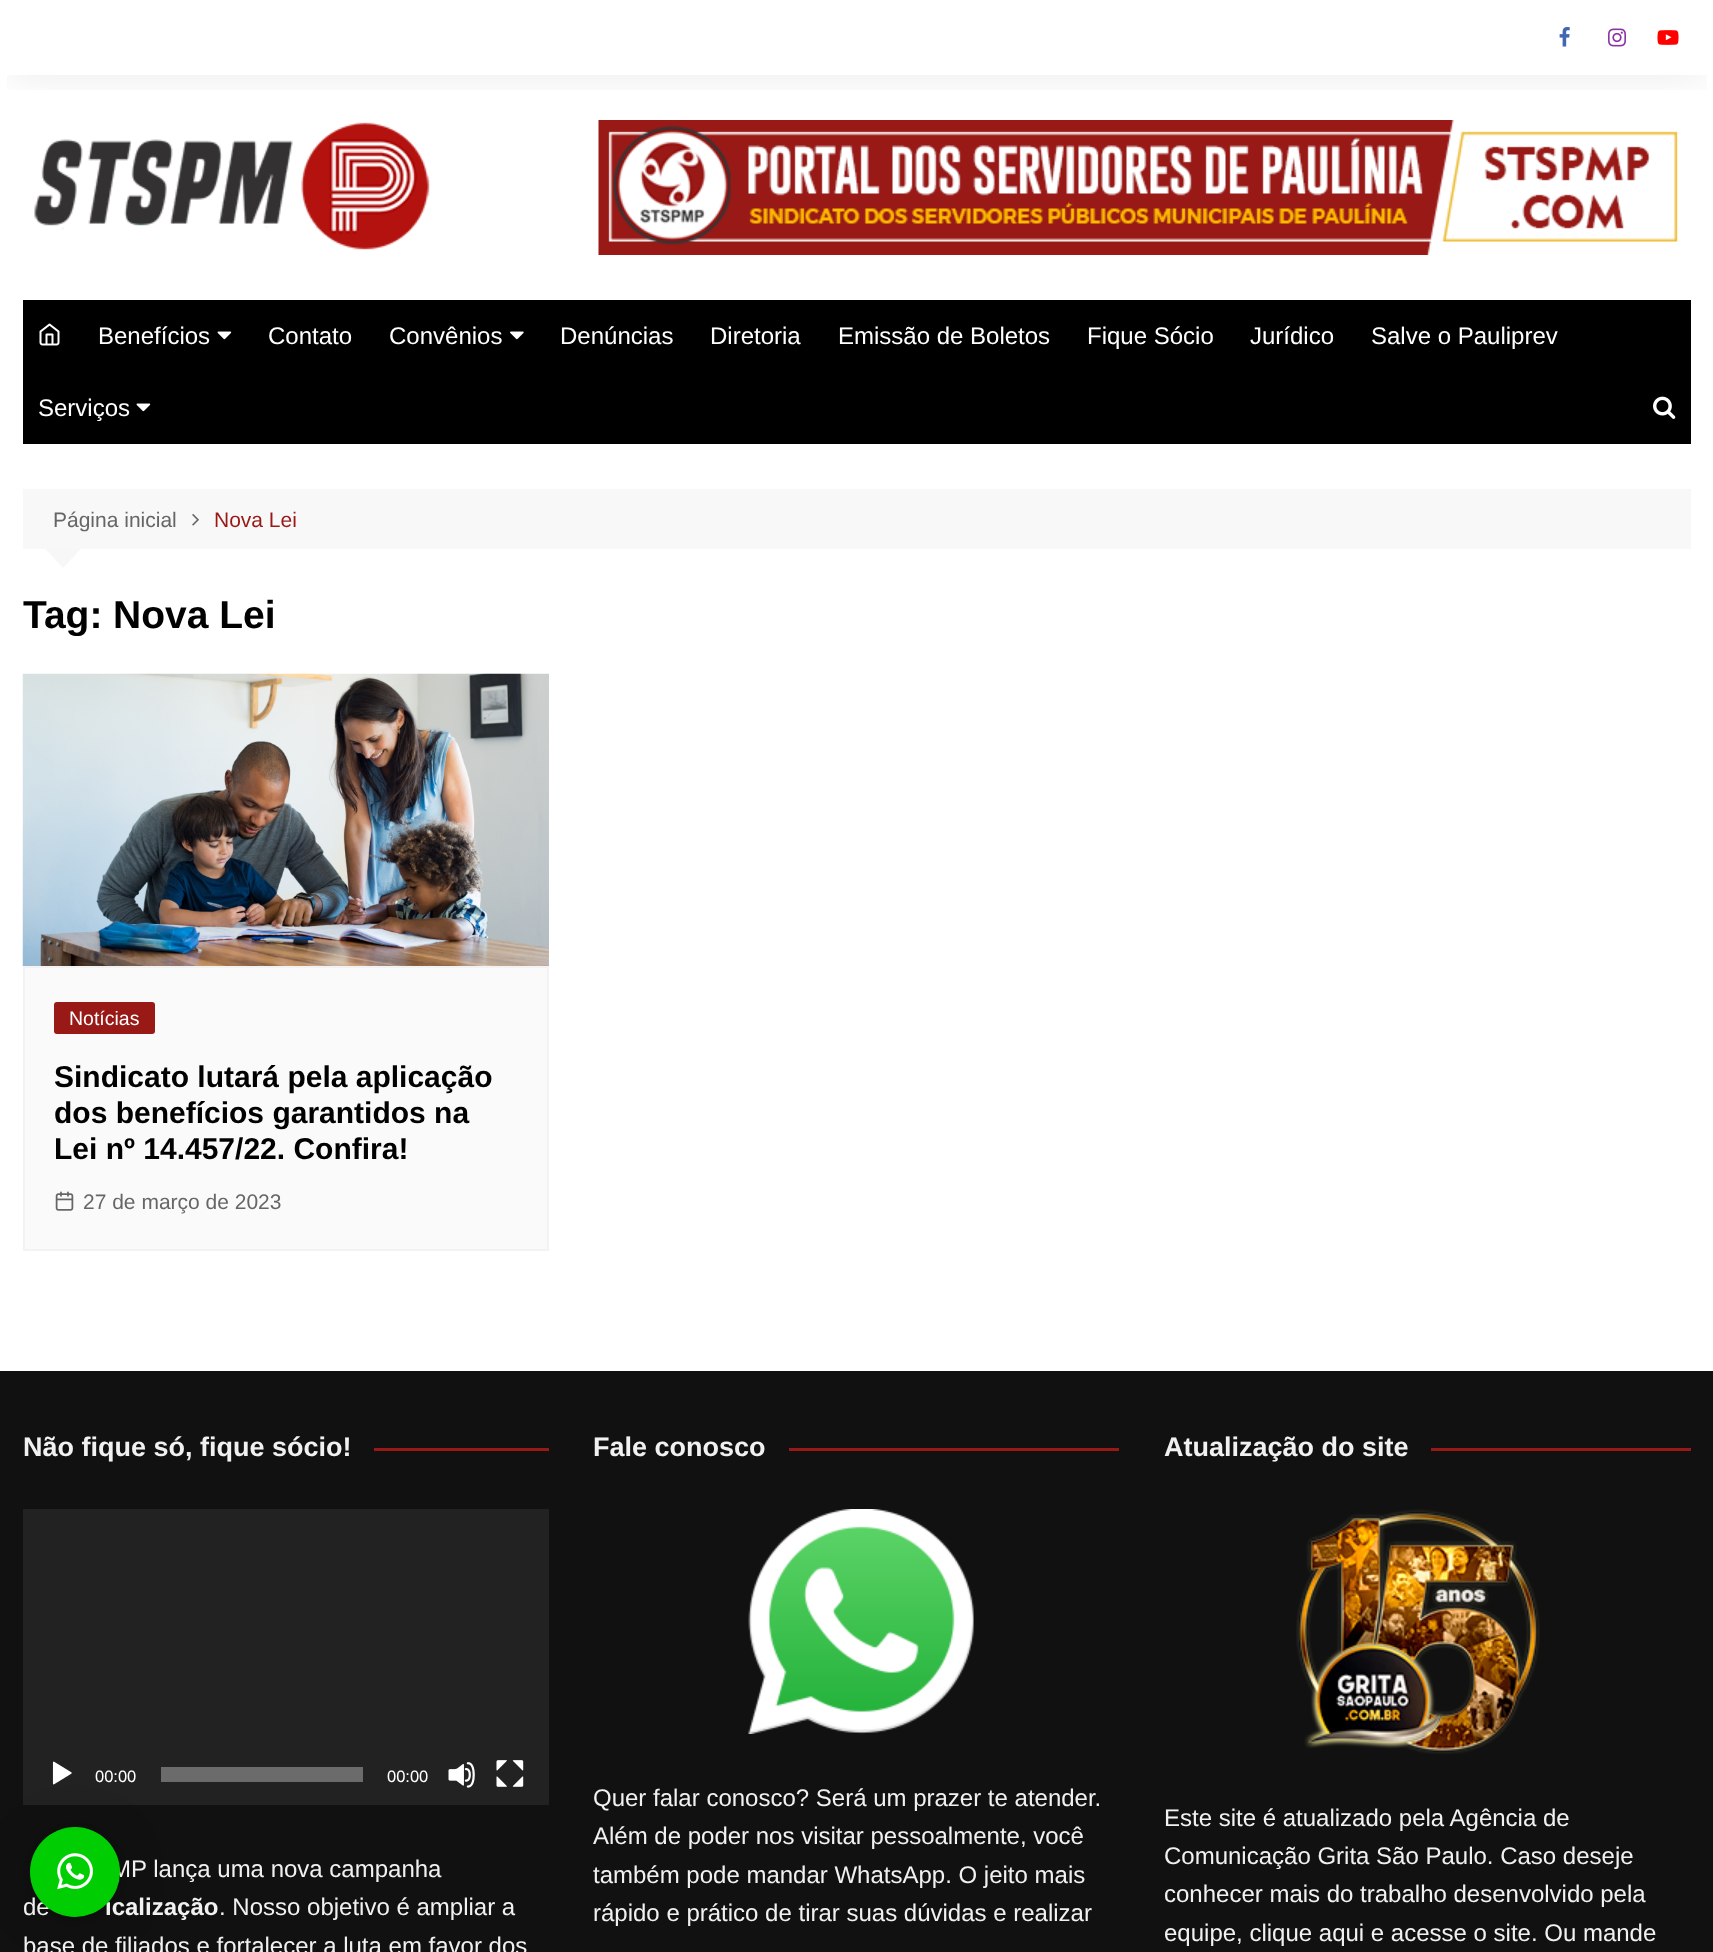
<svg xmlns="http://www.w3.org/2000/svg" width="1713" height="1952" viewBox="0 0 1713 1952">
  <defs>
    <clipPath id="clip1"><path d="M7 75h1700v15H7z"/></clipPath>
    <clipPath id="clip2"><path d="M23 594h1668v42H23z"/></clipPath>
  </defs>
  <rect width="100%" height="100%" fill="#fff"/>
  <g clip-path="url(#clip1)">
    <path d="M8 11h1698v60H8z" fill="#0000001a" filter="blur(22.5px)"/>
  </g>
  <image x="1559" y="27" width="11" height="20" href="img/1.png"/>
  <image x="1608" y="28" width="18" height="19" href="img/2.png"/>
  <image x="1657" y="30" width="22" height="15" href="img/3.png"/>
  <image x="34" y="122" width="396" height="128" href="img/4.png"/>
  <image x="598" y="120" width="1080" height="135" href="img/5.png"/>
  <path d="M23 300h1668v144H23z" fill="#000"/>
  <image x="39" y="323" width="21" height="23" href="img/6.png"/>
  <image x="217" y="331" width="15" height="9" href="img/7.png"/>
  <image x="510" y="331" width="14" height="9" href="img/8.png"/>
  <image x="136" y="403" width="15" height="9" href="img/7.png"/>
  <image x="1653" y="396" width="23" height="23" href="img/9.png"/>
  <path d="M23 489h1668v60H23z" fill="#f8f8f8"/>
  <image x="192" y="514" width="7" height="12" href="img/10.png"/>
  <path d="M45 548.5H81L63 568Z" fill="#f7f7f7"/>
  <image x="22" y="673" width="527" height="293" href="img/11.png"/>
  <path d="M24 967h524v283H24z" fill="#fafafa" stroke="#f3f3f3" stroke-width="2"/>
  <rect x="54" y="1002" width="101" height="32" rx="3" fill="#991916"/>
  <image x="55" y="1191" width="19" height="20" href="img/12.png"/>
  <path d="M0 1371h1713v581H0z" fill="#111"/>
  <path d="M374 1448h175v3H374z" fill="#991916"/>
  <path d="M23 1509h526v296H23z" fill="#222"/>
  <image x="52" y="1761" width="20" height="24" href="img/13.png"/>
  <path d="M161 1767h202v15H161z" fill="#6b6b6b"/>
  <image x="448" y="1762" width="27" height="26" href="img/14.png"/>
  <image x="496" y="1760" width="28" height="27" href="img/15.png"/>
  <path d="M789 1448h330v3H789z" fill="#991916"/>
  <image x="748" y="1509" width="226" height="225" href="img/16.png"/>
  <path d="M1431 1448h260v3H1431z" fill="#991916"/>
  <image x="1296" y="1509" width="244" height="245" href="img/17.png"/>
  <rect x="30" y="1830" width="90" height="90" rx="45" fill="#00000029" filter="blur(24px)"/>
  <rect x="30" y="1829" width="90" height="90" rx="45" fill="#0000000f" filter="blur(4.5px)"/>
  <g font-family="Liberation Sans" font-size="24" fill="#fff">
    <text x="98" y="344">Benefícios</text>
    <text x="268" y="344">Contato</text>
    <text x="389" y="344">Convênios</text>
    <text x="560" y="344">Denúncias</text>
    <text x="710" y="344">Diretoria</text>
    <text x="838" y="344">Emissão de Boletos</text>
    <text x="1087" y="344">Fique Sócio</text>
    <text x="1250" y="344">Jurídico</text>
    <text x="1371" y="344">Salve o Pauliprev</text>
    <text x="38" y="416">Serviços</text>
  </g>
  <text x="53" y="527" font-family="Liberation Sans" font-size="21" fill="#666">Página inicial</text>
  <text x="214" y="527" font-family="Liberation Sans" font-size="21" fill="#991916">Nova Lei</text>
  <g clip-path="url(#clip2)">
    <text x="23" y="628" font-family="Liberation Sans" font-size="39" font-weight="bold" fill="#010101">Tag:</text>
  </g>
  <text x="113" y="628" font-family="Liberation Sans" font-size="39" font-weight="bold" fill="#010101">Nova Lei</text>
  <text x="69" y="1025" font-family="Liberation Sans" font-size="19.5" fill="#fff">Notícias</text>
  <g font-family="Liberation Sans" font-size="30" font-weight="bold" fill="#010101">
    <text x="54" y="1087">Sindicato lutará pela aplicação</text>
    <text x="54" y="1123">dos benefícios garantidos na</text>
    <text x="54" y="1159">Lei nº 14.457/22. Confira!</text>
  </g>
  <text x="83" y="1209" font-family="Liberation Sans" font-size="21" fill="#666">27 de março de 2023</text>
  <text x="23" y="1456" font-family="Liberation Sans" font-size="27" font-weight="bold" fill="#f1f1f1">Não fique só, fique sócio!</text>
  <g font-family="Liberation Sans" font-size="16.5" fill="#fff">
    <text x="95" y="1782">00:00</text>
    <text x="387" y="1782">00:00</text>
  </g>
  <g font-family="Liberation Sans" font-size="24" fill="#f1f1f1">
    <text x="111" y="1877">MP lança uma nova campanha</text>
    <text x="23" y="1915">de</text>
  </g>
  <text x="105" y="1915" font-family="Liberation Sans" font-size="24" font-weight="bold" fill="#f1f1f1">icalização</text>
  <g font-family="Liberation Sans" font-size="24" fill="#f1f1f1">
    <text x="219" y="1915">. Nosso objetivo é ampliar a</text>
    <text x="23" y="1954">base de filiados e fortalecer a luta em favor dos</text>
  </g>
  <text x="593" y="1456" font-family="Liberation Sans" font-size="27" font-weight="bold" fill="#f1f1f1">Fale conosco</text>
  <g font-family="Liberation Sans" font-size="24" fill="#f1f1f1">
    <text x="593" y="1806">Quer falar conosco? Será um prazer te atender.</text>
    <text x="593" y="1844">Além de poder nos visitar pessoalmente, você</text>
    <text x="593" y="1883">também pode mandar WhatsApp. O jeito mais</text>
    <text x="593" y="1921">rápido e prático de tirar suas dúvidas e realizar</text>
  </g>
  <text x="1164" y="1456" font-family="Liberation Sans" font-size="27" font-weight="bold" fill="#f1f1f1">Atualização do site</text>
  <g font-family="Liberation Sans" font-size="24" fill="#f1f1f1">
    <text x="1164" y="1826">Este site é atualizado pela Agência de</text>
    <text x="1164" y="1864">Comunicação Grita São Paulo. Caso deseje</text>
    <text x="1164" y="1902">conhecer mais do trabalho desenvolvido pela</text>
    <text x="1164" y="1941">equipe, clique aqui e acesse o site. Ou mande</text>
  </g>
  <circle cx="75" cy="1872" r="45" fill="#00ce03"/>
  <image x="57" y="1853" width="36" height="37" href="img/18.png"/>
</svg>
